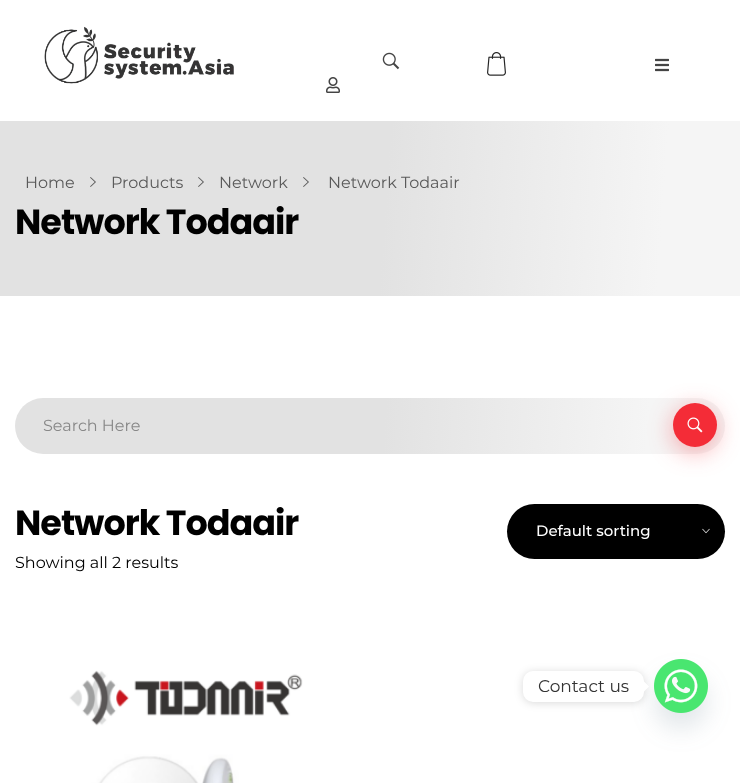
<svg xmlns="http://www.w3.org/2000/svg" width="740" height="783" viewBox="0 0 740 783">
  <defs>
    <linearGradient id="g1" gradientUnits="userSpaceOnUse" x1="-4.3" y1="182" x2="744" y2="235"><stop offset="0.52" stop-color="#e2e2e2"/><stop offset="0.89" stop-color="#f5f5f5"/></linearGradient>
    <linearGradient id="g2" gradientUnits="userSpaceOnUse" x1="15" y1="401" x2="725" y2="451"><stop offset="0.52" stop-color="#e2e2e2"/><stop offset="0.89" stop-color="#f5f5f5"/></linearGradient>
  </defs>
  <rect width="100%" height="100%" fill="#fff"/>
  <image x="44" y="26" width="190" height="58" href="img/1.png"/>
  <image x="382" y="52" width="18" height="18" href="img/2.png"/>
  <image x="487" y="52" width="19" height="24" href="img/3.png"/>
  <image x="655" y="58" width="14" height="14" href="img/4.png"/>
  <image x="326" y="77" width="14" height="16" href="img/5.png"/>
  <path d="M0 121h740v175H0z" fill="url(#g1)"/>
  <image x="90" y="177" width="6" height="10" href="img/6.png"/>
  <image x="198" y="177" width="6" height="10" href="img/6.png"/>
  <image x="303" y="177" width="6" height="10" href="img/6.png"/>
  <rect x="15" y="398" width="710" height="56" rx="28" fill="url(#g2)"/>
  <rect x="673" y="408" width="44" height="44" rx="22" fill="#f42c3766" filter="blur(12.5px)"/>
  <circle cx="695" cy="425" r="22" fill="#f42c37"/>
  <image x="687" y="417" width="16" height="16" href="img/7.png"/>
  <rect x="507" y="504" width="218" height="55" rx="27.5" fill="#000"/>
  <image x="702" y="528" width="8" height="6" href="img/8.png"/>
  <image x="69" y="670" width="234" height="113" href="img/9.png"/>
  <rect x="654" y="675" width="54" height="54" rx="27" fill="#49687e29" filter="blur(12px)"/>
  <image x="654" y="659" width="54" height="54" href="img/10.png"/>
  <rect x="523" y="672" width="121" height="31" rx="10" fill="#00000026" filter="blur(4px)"/>
  <rect x="523" y="671" width="121" height="31" rx="10" fill="#fff"/>
  <path d="M644 691.5V681.5L649 686.5Z" fill="#fff"/>
  <g font-family="Montserrat" font-size="16" fill="#5a5a5a">
    <text x="25" y="188">Home</text>
    <text x="111" y="188">Products</text>
    <text x="219" y="188">Network</text>
    <text x="328" y="188">Network Todaair</text>
  </g>
  <text x="15" y="234" font-family="Poppins" font-size="35" font-weight="bold" letter-spacing="-1" fill="#000">Network Todaair</text>
  <text x="43" y="431" font-family="Montserrat" font-size="16" fill="#888">Search Here</text>
  <text x="15" y="535" font-family="Poppins" font-size="35" font-weight="bold" letter-spacing="-1" fill="#000">Network Todaair</text>
  <text x="536" y="536" font-family="Montserrat" font-size="15" font-weight="500" fill="#fff">Default sorting</text>
  <text x="15" y="568" font-family="Montserrat" font-size="16" fill="#000">Showing all 2 results</text>
  <text x="538" y="692" font-family="Montserrat" font-size="17" fill="#333">Contact us</text>
</svg>
